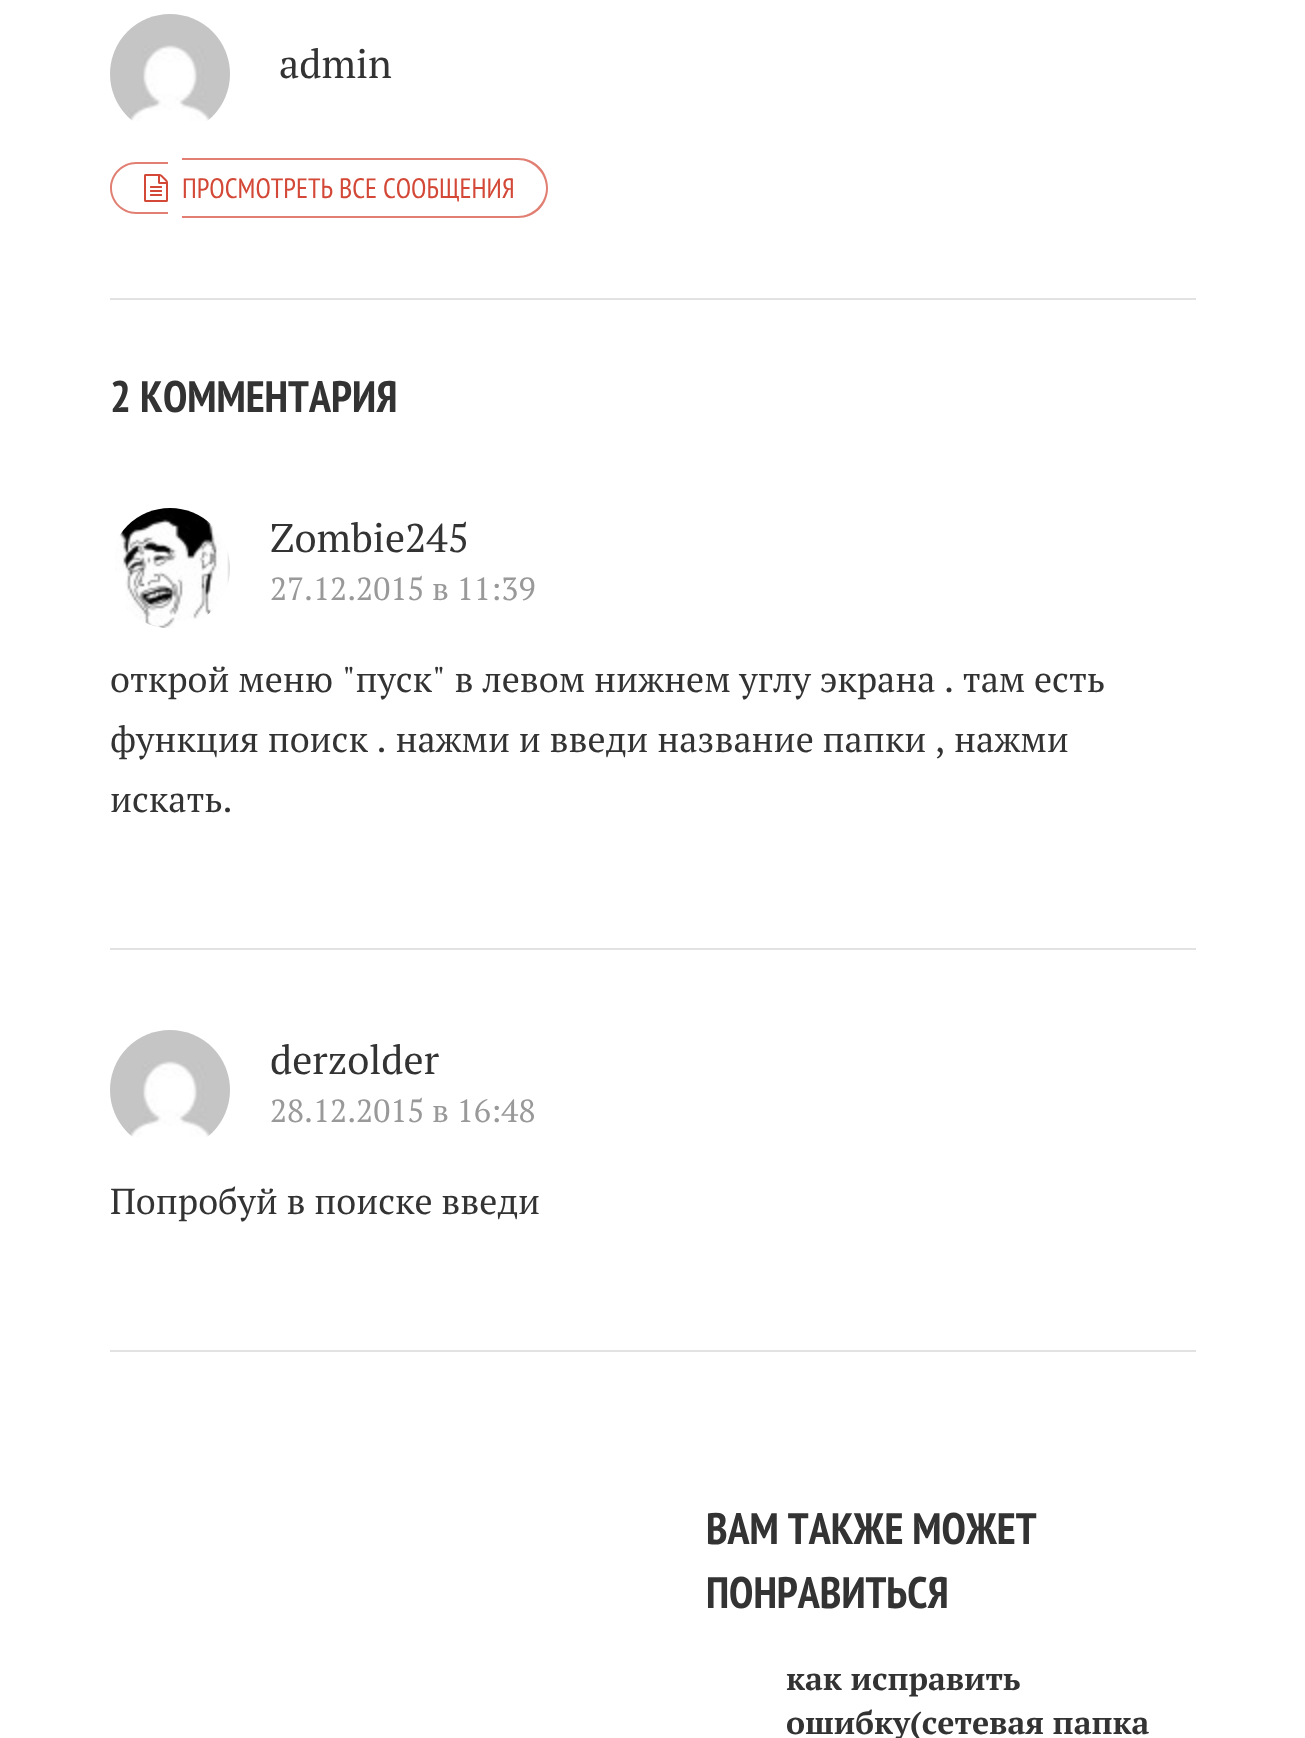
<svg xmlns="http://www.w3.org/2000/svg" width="1305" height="1738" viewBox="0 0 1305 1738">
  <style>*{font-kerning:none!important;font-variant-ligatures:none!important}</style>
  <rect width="100%" height="100%" fill="#fff"/>
  <image x="110" y="14" width="120" height="107" href="img/1.png"/>
  <path d="M136 162H168V214H136C122 214 110 202 110 188C110 174 122 162 136 162ZM136 164H168V212H136C123 212 112 201 112 188C112 175 123 164 136 164Z" fill="#e07f72" fill-rule="evenodd"/>
  <image x="144" y="174" width="24" height="28" href="img/2.png"/>
  <path d="M182 158H518C535 158 548 171 548 188C548 205 535 218 518 218H182ZM182 160H518C533 160 546 173 546 188C546 203 533 216 518 216H182Z" fill="#e07f72" fill-rule="evenodd"/>
  <path d="M110 298h1086v2H110z" fill="#e2e2e2"/>
  <path d="M110 948h1086v2H110z" fill="#e2e2e2"/>
  <image x="115" y="508" width="115" height="120" href="img/3.png"/>
  <path d="M110 1350h1086v2H110z" fill="#e2e2e2"/>
  <image x="110" y="1030" width="120" height="107" href="img/1.png"/>
  <text x="279" y="78" font-family="PT Serif" font-size="40" fill="#333">admin</text>
  <text x="182" y="198" font-family="PT Sans Narrow" font-size="28" fill="#d34836">ПРОСМОТРЕТЬ ВСЕ СООБЩЕНИЯ</text>
  <text x="110" y="412" font-family="PT Sans Narrow" font-size="44" font-weight="bold" fill="#333">2 КОММЕНТАРИЯ</text>
  <text x="270" y="552" font-family="PT Serif" font-size="40" fill="#333">Zombie245</text>
  <text x="270" y="600" font-family="PT Serif" font-size="32" fill="#999">27.12.2015 в 11:39</text>
  <g font-family="PT Serif" font-size="36" fill="#333">
    <text x="110" y="692">открой меню "пуск" в левом нижнем углу экрана</text>
    <text x="944" y="692">. там есть</text>
    <text x="110" y="752">функция поиск . нажми и введи название папки ,</text>
    <text x="954" y="752">нажми</text>
    <text x="110" y="812">искать.</text>
  </g>
  <text x="270" y="1074" font-family="PT Serif" font-size="40" fill="#333">derzolder</text>
  <text x="270" y="1122" font-family="PT Serif" font-size="32" fill="#999">28.12.2015 в 16:48</text>
  <text x="110" y="1214" font-family="PT Serif" font-size="36" fill="#333">Попробуй в поиске введи</text>
  <g font-family="PT Sans Narrow" font-size="44" font-weight="bold" fill="#333">
    <text x="706" y="1544">ВАМ ТАКЖЕ МОЖЕТ</text>
    <text x="706" y="1608">ПОНРАВИТЬСЯ</text>
  </g>
  <g font-family="PT Serif" font-size="32" font-weight="bold" fill="#333">
    <text x="786" y="1690">как исправить</text>
    <text x="786" y="1734">ошибку(сетевая папка</text>
  </g>
</svg>
